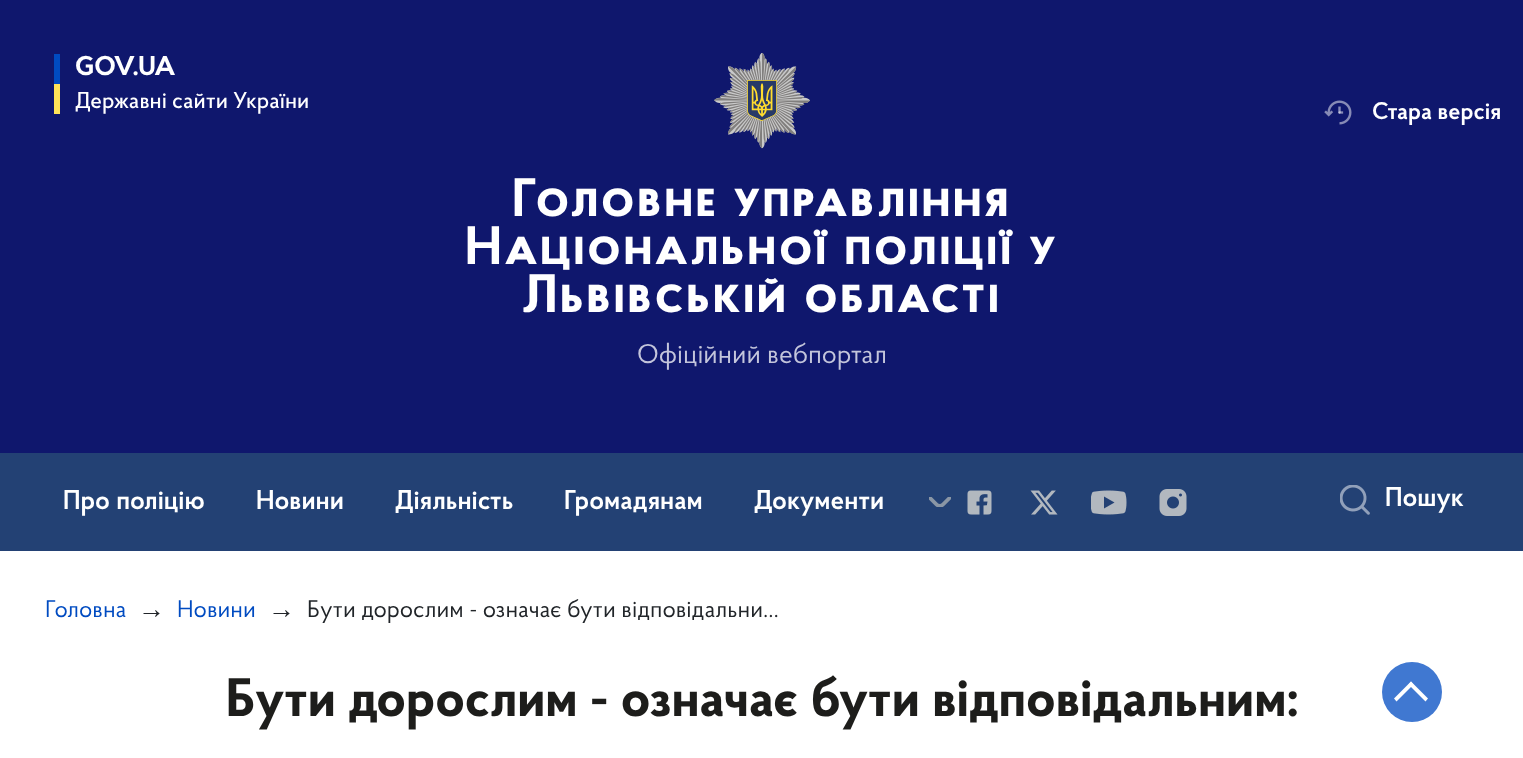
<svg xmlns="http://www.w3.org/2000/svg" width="1523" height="758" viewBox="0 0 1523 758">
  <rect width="100%" height="100%" fill="#fff"/>
  <path d="M0 0h1523v453H0z" fill="#0f176d"/>
  <path d="M54 54h6v30H54z" fill="#004bc1"/>
  <path d="M54 84h6v30H54z" fill="#ffe358"/>
  <image x="1324" y="100" width="28" height="25" href="img/1.png"/>
  <image x="714" y="53" width="96" height="96" href="img/2.png"/>
  <path d="M0 453h1523v98H0z" fill="#234174"/>
  <image x="929" y="497" width="22" height="10" href="img/3.png"/>
  <image x="967" y="490" width="25" height="25" href="img/4.png"/>
  <image x="1030" y="490" width="28" height="25" href="img/5.png"/>
  <image x="1091" y="490" width="36" height="25" href="img/6.png"/>
  <image x="1159" y="489" width="28" height="27" href="img/7.png"/>
  <image x="1340" y="485" width="30" height="30" href="img/8.png"/>
  <circle cx="1412" cy="692" r="30" fill="#4078d1"/>
  <path d="M1408.5 684.5L1411 681.5L1428 698.5L1425.5 701.5Z" fill="#fff"/>
  <path d="M1411 681.5L1413.5 684.5L1396.5 701.5L1394 698.5Z" fill="#fff"/>
  <text x="75" y="75" font-family="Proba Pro" font-size="27" font-weight="bold" fill="#fff">GOV.UA</text>
  <text x="75" y="108" font-family="Proba Pro" font-size="23" font-weight="500" fill="#fff">Державні сайти України</text>
  <text x="1372" y="119" font-family="Proba Pro" font-size="24" font-weight="600" fill="#fff">Стара версія</text>
  <g font-family="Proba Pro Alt" font-size="54" font-weight="bold" letter-spacing="3" fill="#fff">
    <text x="512" y="216">Головне управління</text>
    <text x="465" y="264">Національної поліції у</text>
    <text x="522" y="312">Львівській області</text>
  </g>
  <text x="637" y="363" font-family="Proba Pro" font-size="27" fill="#c3c5db">Офіційний вебпортал</text>
  <g font-family="Proba Pro" font-size="27" font-weight="600" fill="#fff">
    <text x="63" y="509">Про поліцію</text>
    <text x="256" y="509">Новини</text>
    <text x="395" y="509">Діяльність</text>
    <text x="564" y="509">Громадянам</text>
    <text x="754" y="509">Документи</text>
    <text x="1385" y="506">Пошук</text>
  </g>
  <text x="45" y="617" font-family="Proba Pro" font-size="24" fill="#004bc1">Головна</text>
  <text x="138" y="618" font-family="Liberation Sans" font-size="27" fill="#212529">→</text>
  <text x="177" y="617" font-family="Proba Pro" font-size="24" fill="#004bc1">Новини</text>
  <text x="268" y="618" font-family="Liberation Sans" font-size="27" fill="#212529">→</text>
  <text x="307" y="617" font-family="Proba Pro" font-size="24" fill="#212529">Бути дорослим - означає бути відповідальни…</text>
  <text x="226" y="716" font-family="Proba Pro" font-size="54" font-weight="bold" fill="#1d1d1b">Бути дорослим - означає бути відповідальним:</text>
</svg>
